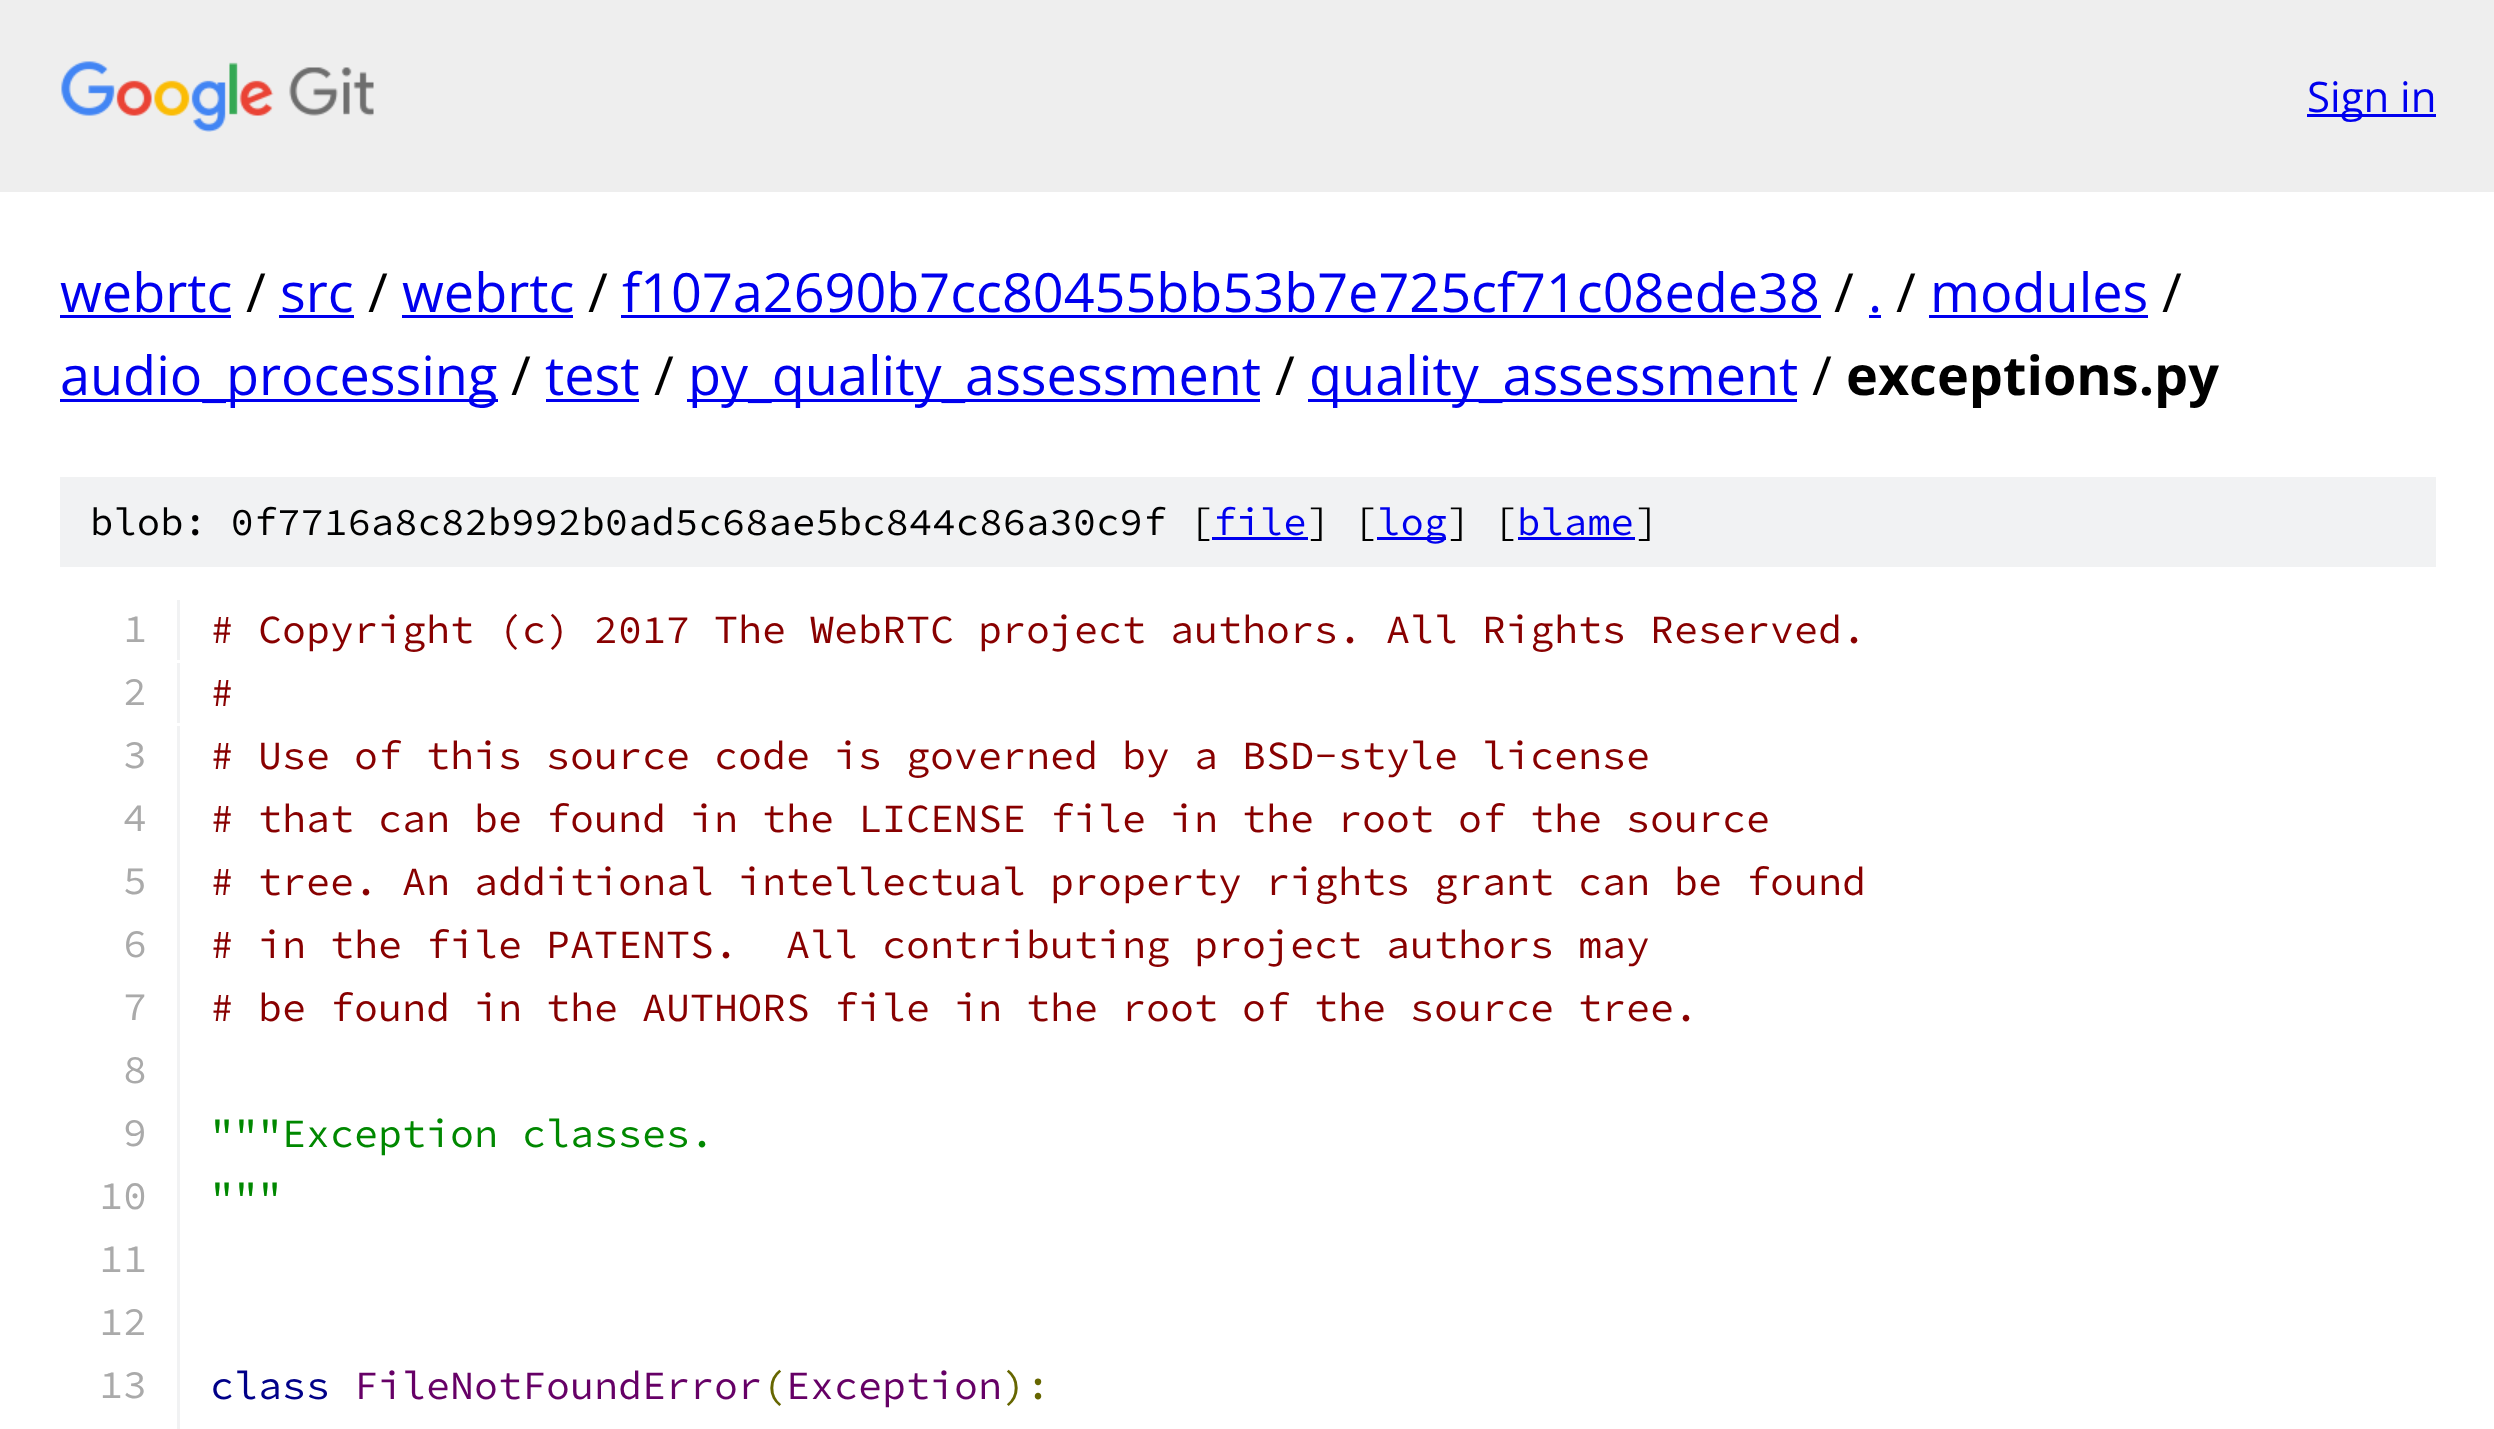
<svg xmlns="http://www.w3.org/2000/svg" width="2494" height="1429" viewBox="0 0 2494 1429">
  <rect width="100%" height="100%" fill="#fff"/>
  <path d="M0 0h2494v192H0z" fill="#eee"/>
  <image x="61" y="61" width="313" height="71" href="img/1.png"/>
  <path d="M2307 114h129v3H2307z" fill="#00e"/>
  <path d="M60 315h171v3H60z" fill="#00e"/>
  <path d="M279 315h75v3H279z" fill="#00e"/>
  <path d="M402 315h171v3H402z" fill="#00e"/>
  <path d="M621 315h1200v3H621z" fill="#00e"/>
  <path d="M1869 315h12v3H1869z" fill="#00e"/>
  <path d="M1929 315h219v3H1929z" fill="#00e"/>
  <path d="M60 399h438v3H60z" fill="#00e"/>
  <path d="M546 399h93v3H546z" fill="#00e"/>
  <path d="M687 399h573v3H687z" fill="#00e"/>
  <path d="M1308 399h489v3H1308z" fill="#00e"/>
  <path d="M60 477h2376v90H60z" fill="#f1f2f3"/>
  <path d="M1212 537h96v3H1212z" fill="#00e"/>
  <path d="M1377 537h69v3H1377z" fill="#00e"/>
  <path d="M1518 537h117v3H1518z" fill="#00e"/>
  <path d="M177 600h3v60H177z" fill="#f1f2f3"/>
  <path d="M177 663h3v60H177z" fill="#f1f2f3"/>
  <path d="M177 726h3v703H177z" fill="#f1f2f3"/>
  <text x="2307" y="112" font-family="Open Sans" font-size="42" fill="#00e">Sign in</text>
  <text x="60" y="312" font-family="Open Sans" font-size="54" fill="#00e">webrtc</text>
  <text x="246" y="312" font-family="Open Sans" font-size="54" fill="#000">/</text>
  <text x="280" y="312" font-family="Open Sans" font-size="54" fill="#00e">src</text>
  <text x="368" y="312" font-family="Open Sans" font-size="54" fill="#000">/</text>
  <text x="402" y="312" font-family="Open Sans" font-size="54" fill="#00e">webrtc</text>
  <text x="588" y="312" font-family="Open Sans" font-size="54" fill="#000">/</text>
  <text x="622" y="312" font-family="Open Sans" font-size="54" fill="#00e">f107a2690b7cc80455bb53b7e725cf71c08ede38</text>
  <text x="1834" y="312" font-family="Open Sans" font-size="54" fill="#000">/</text>
  <text x="1868" y="312" font-family="Open Sans" font-size="54" fill="#00e">.</text>
  <text x="1896" y="312" font-family="Open Sans" font-size="54" fill="#000">/</text>
  <text x="1930" y="312" font-family="Open Sans" font-size="54" fill="#00e">modules</text>
  <text x="2162" y="312" font-family="Open Sans" font-size="54" fill="#000">/</text>
  <text x="60" y="395" font-family="Open Sans" font-size="54" fill="#00e">audio_processing</text>
  <text x="511" y="395" font-family="Open Sans" font-size="54" fill="#000">/</text>
  <text x="545" y="395" font-family="Open Sans" font-size="54" fill="#00e">test</text>
  <text x="654" y="395" font-family="Open Sans" font-size="54" fill="#000">/</text>
  <text x="688" y="395" font-family="Open Sans" font-size="54" fill="#00e">py_quality_assessment</text>
  <text x="1275" y="395" font-family="Open Sans" font-size="54" fill="#000">/</text>
  <text x="1309" y="395" font-family="Open Sans" font-size="54" fill="#00e">quality_assessment</text>
  <text x="1812" y="395" font-family="Open Sans" font-size="54" fill="#000">/</text>
  <text x="1846" y="395" font-family="Open Sans" font-size="54" font-weight="bold" fill="#000">exceptions.py</text>
  <text x="90" y="535" font-family="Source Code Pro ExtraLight" font-size="39" font-weight="200" fill="#000">blob: 0f7716a8c82b992b0ad5c68ae5bc844c86a30c9f [</text>
  <text x="1213" y="535" font-family="Source Code Pro ExtraLight" font-size="39" font-weight="200" fill="#00e">file</text>
  <text x="1307" y="535" font-family="Source Code Pro ExtraLight" font-size="39" font-weight="200" fill="#000">] [</text>
  <text x="1377" y="535" font-family="Source Code Pro ExtraLight" font-size="39" font-weight="200" fill="#00e">log</text>
  <text x="1447" y="535" font-family="Source Code Pro ExtraLight" font-size="39" font-weight="200" fill="#000">] [</text>
  <text x="1517" y="535" font-family="Source Code Pro ExtraLight" font-size="39" font-weight="200" fill="#00e">blame</text>
  <text x="1635" y="535" font-family="Source Code Pro ExtraLight" font-size="39" font-weight="200" fill="#000">]</text>
  <text x="123" y="642" font-family="Source Code Pro ExtraLight" font-size="40" font-weight="200" fill="#aaa">1</text>
  <text x="210" y="643" font-family="Source Code Pro ExtraLight" font-size="40" font-weight="200" fill="#800"># Copyright (c) 2017 The WebRTC project authors. All Rights Reserved.</text>
  <text x="123" y="705" font-family="Source Code Pro ExtraLight" font-size="40" font-weight="200" fill="#aaa">2</text>
  <text x="210" y="706" font-family="Source Code Pro ExtraLight" font-size="40" font-weight="200" fill="#800">#</text>
  <text x="123" y="768" font-family="Source Code Pro ExtraLight" font-size="40" font-weight="200" fill="#aaa">3</text>
  <text x="210" y="769" font-family="Source Code Pro ExtraLight" font-size="40" font-weight="200" fill="#800"># Use of this source code is governed by a BSD-style license</text>
  <text x="123" y="831" font-family="Source Code Pro ExtraLight" font-size="40" font-weight="200" fill="#aaa">4</text>
  <text x="210" y="832" font-family="Source Code Pro ExtraLight" font-size="40" font-weight="200" fill="#800"># that can be found in the LICENSE file in the root of the source</text>
  <text x="123" y="894" font-family="Source Code Pro ExtraLight" font-size="40" font-weight="200" fill="#aaa">5</text>
  <text x="210" y="895" font-family="Source Code Pro ExtraLight" font-size="40" font-weight="200" fill="#800"># tree. An additional intellectual property rights grant can be found</text>
  <text x="123" y="957" font-family="Source Code Pro ExtraLight" font-size="40" font-weight="200" fill="#aaa">6</text>
  <text x="210" y="958" font-family="Source Code Pro ExtraLight" font-size="40" font-weight="200" fill="#800" xml:space="preserve"># in the file PATENTS.  All contributing project authors may</text>
  <text x="123" y="1020" font-family="Source Code Pro ExtraLight" font-size="40" font-weight="200" fill="#aaa">7</text>
  <text x="210" y="1021" font-family="Source Code Pro ExtraLight" font-size="40" font-weight="200" fill="#800"># be found in the AUTHORS file in the root of the source tree.</text>
  <g font-family="Source Code Pro ExtraLight" font-size="40" font-weight="200" fill="#aaa">
    <text x="123" y="1083">8</text>
    <text x="123" y="1146">9</text>
  </g>
  <text x="210" y="1147" font-family="Source Code Pro ExtraLight" font-size="40" font-weight="200" fill="#080">"""Exception classes.</text>
  <text x="99" y="1209" font-family="Source Code Pro ExtraLight" font-size="40" font-weight="200" fill="#aaa">10</text>
  <text x="210" y="1210" font-family="Source Code Pro ExtraLight" font-size="40" font-weight="200" fill="#080">"""</text>
  <g font-family="Source Code Pro ExtraLight" font-size="40" font-weight="200" fill="#aaa">
    <text x="99" y="1272">11</text>
    <text x="99" y="1335">12</text>
    <text x="99" y="1398">13</text>
  </g>
  <text x="210" y="1399" font-family="Source Code Pro ExtraLight" font-size="40" font-weight="200" fill="#008">class</text>
  <text x="1002" y="1399" font-family="Source Code Pro ExtraLight" font-size="40" font-weight="200" fill="#660">):</text>
  <text x="354" y="1399" font-family="Source Code Pro ExtraLight" font-size="40" font-weight="200" fill="#606">FileNotFoundError Exception</text>
  <text x="762" y="1399" font-family="Source Code Pro ExtraLight" font-size="40" font-weight="200" fill="#660">(</text>
</svg>
